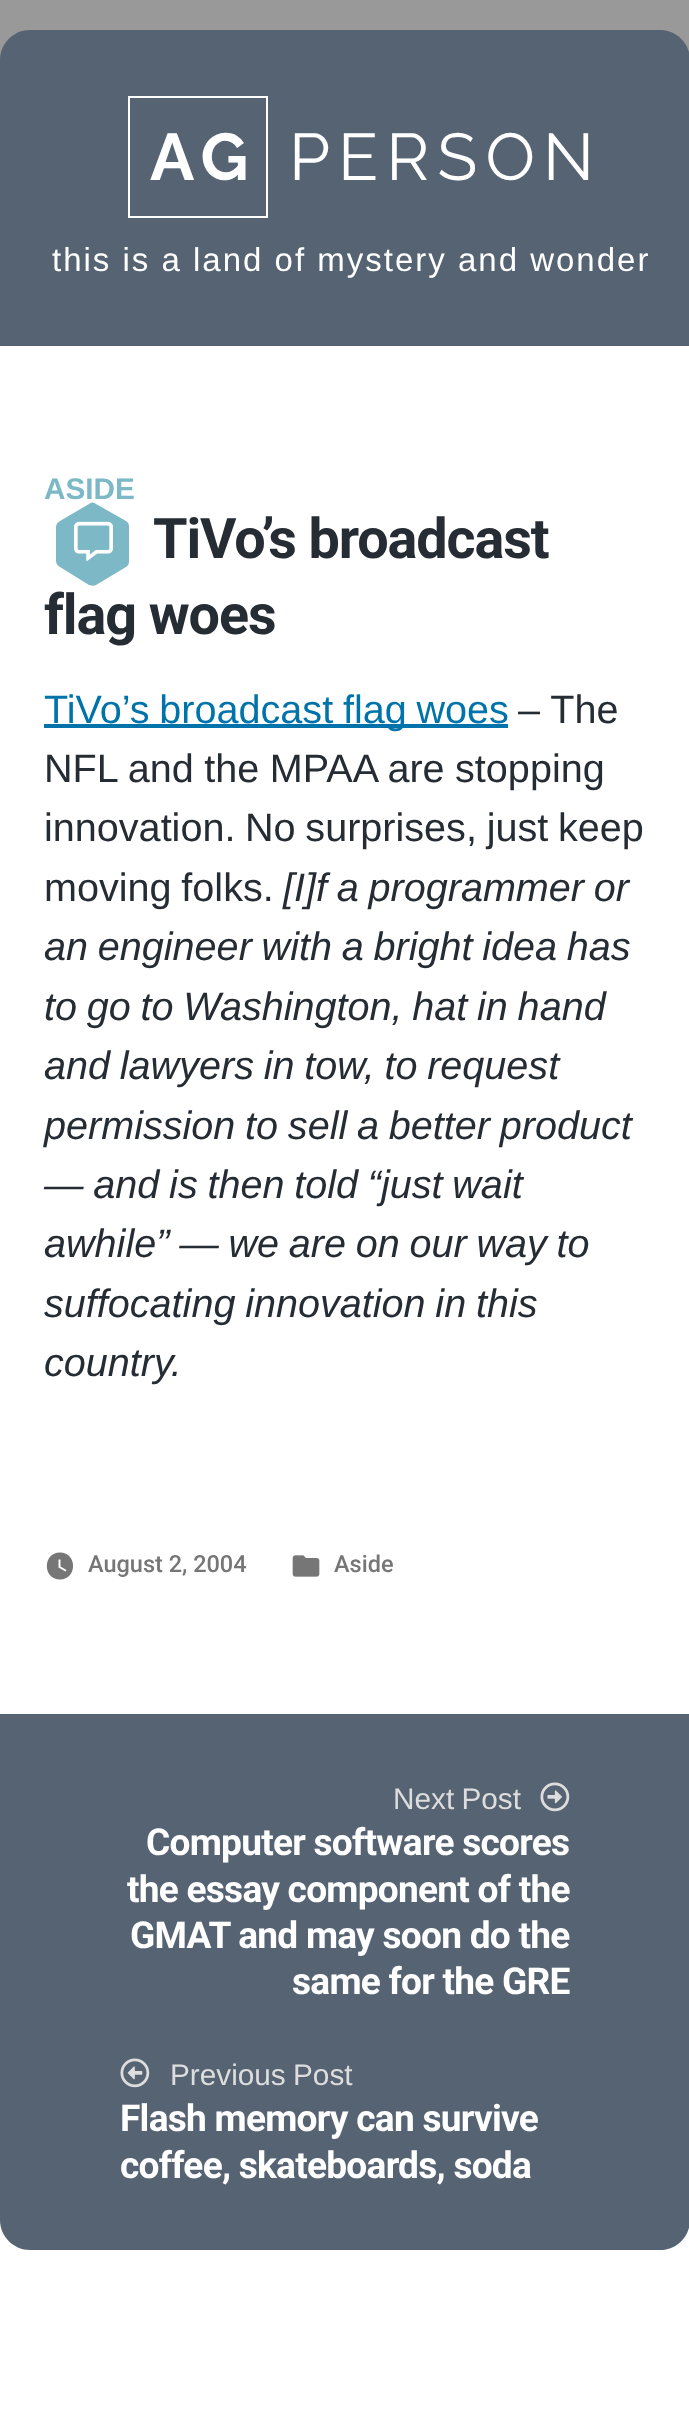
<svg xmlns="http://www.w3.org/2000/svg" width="689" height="2419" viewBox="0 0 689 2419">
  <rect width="100%" height="100%" fill="#fff"/>
  <path d="M0 0h689v60H0z" fill="#999"/>
  <path d="M30 30H660C676.5 30 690 43.5 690 60V346H0V60C0 43.5 13.5 30 30 30Z" fill="#566372"/>
  <path d="M129 97h138v120H129z" fill="none" stroke="#fff" stroke-width="2"/>
  <path d="M126 567L96 585C94 586 92 586 89 585L60 567C58 566 56 564 56 561V527C56 524 58 522 60 521L89 504C92 502 94 502 96 504L126 521C128 522 129 524 129 527V561C129 564 128 566 126 567Z" fill="#7cb8c6"/>
  <image x="74" y="521" width="39" height="40" href="img/1.png"/>
  <path d="M44 724h464v4H44z" fill="#0073aa"/>
  <path d="M60 1552.5C42.5 1552.5 42.5 1579.5 60 1579.5C77.5 1579.5 77.5 1552.5 60 1552.5ZM65.5 1571.5L58.5 1567.5V1559.5H60.5V1566.5L66.5 1570Z" fill="#767676"/>
  <image x="292" y="1555" width="28" height="22" href="img/2.png"/>
  <path d="M0 1714H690V2220C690 2236.5 676.5 2250 660 2250H30C13.5 2250 0 2236.5 0 2220Z" fill="#566372"/>
  <image x="540" y="1782" width="30" height="30" href="img/3.png"/>
  <image x="120" y="2058" width="30" height="30" href="img/4.png"/>
  <text x="150" y="180" font-family="Raleway" font-size="66" font-weight="bold" letter-spacing="8" fill="#fff">AG</text>
  <text x="289" y="180" font-family="Raleway" font-size="66" letter-spacing="8" fill="#fff">PERSON</text>
  <text x="52" y="271" font-family="Liberation Sans" font-size="33" letter-spacing="2" fill="#fff">this is a land of mystery and wonder</text>
  <text x="44" y="499" font-family="Liberation Sans" font-size="29.75" font-weight="bold" fill="#7cb8c6">ASIDE</text>
  <g font-family="Roboto" font-size="55.75" font-weight="bold" letter-spacing="-1.1" fill="#252c33">
    <text x="153" y="558">TiVo’s broadcast</text>
    <text x="44" y="634">flag woes</text>
  </g>
  <text x="44" y="723" word-spacing="-1.25" font-family="Liberation Sans" font-size="39.6" fill="#0073aa">TiVo’s broadcast flag woes</text>
  <g font-family="Liberation Sans" font-size="39.6" fill="#252c33">
    <text x="518" y="723">– The</text>
    <text x="44" y="782" word-spacing="-0.5">NFL and the MPAA are stopping</text>
    <text x="44" y="841">innovation.</text>
    <text x="245" y="841" word-spacing="-1.25">No surprises, just keep</text>
    <text x="44" y="901" word-spacing="-1.25">moving folks.</text>
  </g>
  <g font-family="Liberation Sans" font-size="39.6" font-style="italic" fill="#252c33">
    <text x="283" y="901" word-spacing="-1.25">[I]f a programmer or</text>
    <text x="44" y="960" word-spacing="-1.25">an engineer with a bright idea has</text>
    <text x="44" y="1020" word-spacing="-1.25">to go to Washington, hat in hand</text>
    <text x="44" y="1079" word-spacing="-1.25">and lawyers in tow, to request</text>
    <text x="44" y="1139" word-spacing="-1.25">permission to sell a better product</text>
    <text x="44" y="1198" word-spacing="-1.25">— and is then told “just wait</text>
    <text x="44" y="1257" word-spacing="-1.25">awhile” — we are on our way to</text>
    <text x="44" y="1317" word-spacing="-1.25">suffocating innovation in this</text>
    <text x="44" y="1376">country.</text>
  </g>
  <g font-family="Roboto" font-size="23.5" font-weight="500" fill="#767676">
    <text x="88" y="1572">August 2, 2004</text>
    <text x="334" y="1572">Aside</text>
  </g>
  <text x="393" y="1809" word-spacing="-1" font-family="Liberation Sans" font-size="29.75" fill="#ddd">Next Post</text>
  <g font-family="Roboto" font-size="37.1" font-weight="bold" letter-spacing="-0.75" fill="#fff">
    <text x="146" y="1855">Computer software scores</text>
    <text x="127" y="1902">the essay component of the</text>
    <text x="130" y="1948">GMAT and may soon do the</text>
    <text x="292" y="1994">same for the GRE</text>
  </g>
  <text x="170" y="2085" word-spacing="-1" font-family="Liberation Sans" font-size="29.75" fill="#ddd">Previous Post</text>
  <g font-family="Roboto" font-size="37.1" font-weight="bold" letter-spacing="-0.75" fill="#fff">
    <text x="120" y="2131">Flash memory can survive</text>
    <text x="120" y="2178">coffee, skateboards, soda</text>
  </g>
</svg>
